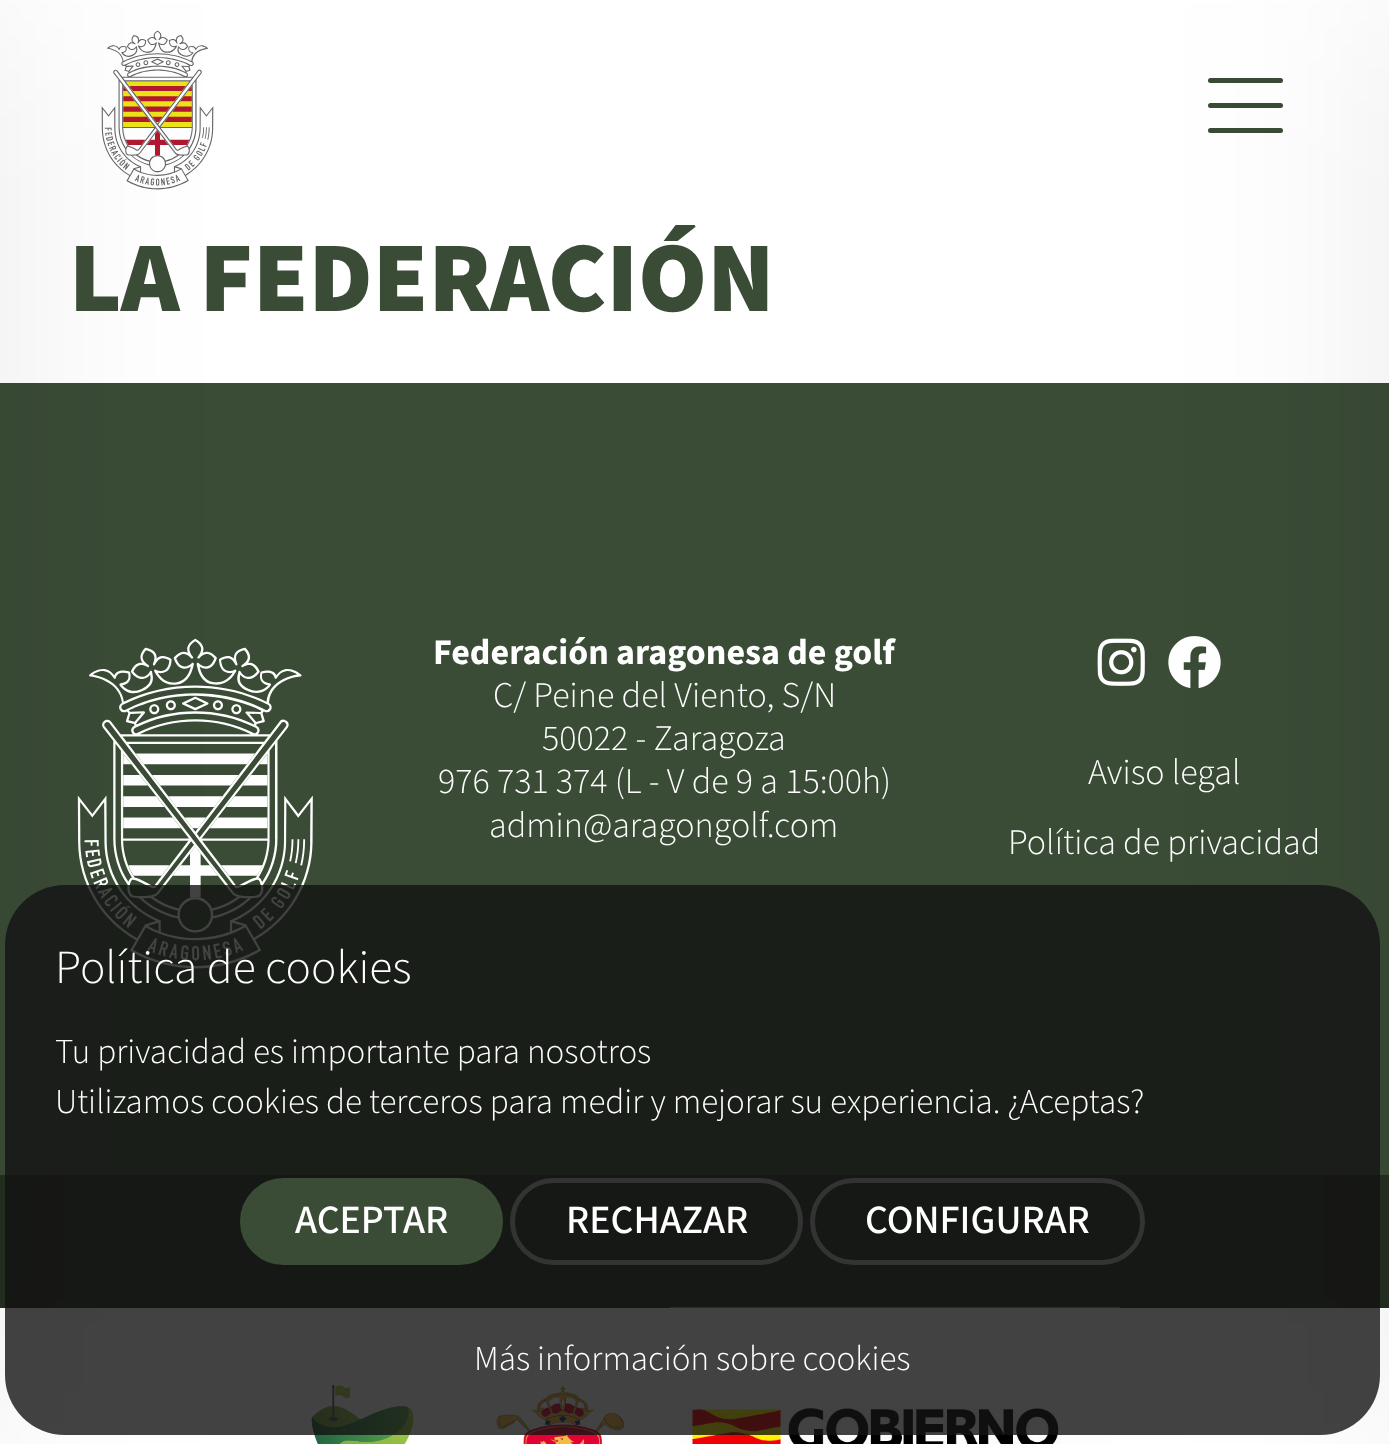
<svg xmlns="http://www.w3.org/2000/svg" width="1389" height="1444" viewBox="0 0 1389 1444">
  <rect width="100%" height="100%" fill="#fff"/>
  <image x="101" y="30" width="113" height="160" href="img/1.png"/>
  <path d="M0 383h1389v792H0z" fill="#3a4b36"/>
  <image x="77" y="638" width="236" height="331" href="img/2.png"/>
  <path d="M0 1175h1389v133H0z" fill="#242e21"/>
  <image x="311" y="1385" width="103" height="59" href="img/5.png"/>
  <path d="M-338 3h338v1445H-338z" fill="#00000014" filter="blur(112.5px)"/>
  <rect x="1208" y="128" width="75" height="5" rx="2.5" fill="#3a4b36"/>
  <rect x="1208" y="78" width="75" height="5" rx="2.5" fill="#3a4b36"/>
  <rect x="1208" y="103" width="75" height="5" rx="2.5" fill="#3a4b36"/>
  <image x="1097" y="638" width="48" height="48" href="img/3.png"/>
  <image x="1168" y="636" width="53" height="52" href="img/4.png"/>
  <image x="670" y="1307" width="450" height="137" href="img/7.png"/>
  <path d="M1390 3h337v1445H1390z" fill="#00000014" filter="blur(112.5px)"/>
  <image x="496" y="1386" width="129" height="58" href="img/6.png"/>
  <rect x="5" y="885" width="1375" height="550" rx="60" fill="#131313cc"/>
  <rect x="242.5" y="1180.5" width="258" height="82" rx="41" fill="#3a4b36" stroke="#3a4b36" stroke-width="5"/>
  <rect x="512.5" y="1180.5" width="288" height="82" rx="41" fill="none" stroke="#333" stroke-width="5"/>
  <rect x="812.5" y="1180.5" width="330" height="82" rx="41" fill="none" stroke="#333" stroke-width="5"/>
  <text x="69" y="311" font-family="'Source Sans 3'" font-size="100" font-weight="900" fill="#3a4b36">LA FEDERACIÓN</text>
  <text x="433" y="664" font-family="'Source Sans 3'" font-size="36" font-weight="bold" fill="#fff">Federación aragonesa de golf</text>
  <g font-family="'Source Sans 3'" font-size="36" font-weight="300" fill="#fff">
    <text x="493" y="707">C/ Peine del Viento, S/N</text>
    <text x="542" y="750">50022 - Zaragoza</text>
    <text x="438" y="793">976 731 374 (L - V de 9 a 15:00h)</text>
    <text x="489" y="837">admin@aragongolf.com</text>
    <text x="1088" y="784">Aviso legal</text>
    <text x="1008" y="854">Política de privacidad</text>
  </g>
  <text x="55" y="983" font-family="'Source Sans 3'" font-size="47.5" font-weight="300" fill="#fff">Política de cookies</text>
  <g font-family="'Source Sans 3'" font-size="35" font-weight="300" fill="#fff">
    <text x="55" y="1063">Tu privacidad es importante para nosotros</text>
    <text x="55" y="1113">Utilizamos cookies de terceros para medir y mejorar su experiencia. ¿Aceptas?</text>
  </g>
  <g font-family="'Source Sans 3'" font-size="40" font-weight="500" fill="#fff">
    <text x="295" y="1233">ACEPTAR</text>
    <text x="566" y="1233">RECHAZAR</text>
    <text x="865" y="1233">CONFIGURAR</text>
  </g>
  <text x="474" y="1370" font-family="'Source Sans 3'" font-size="35" font-weight="300" fill="#fff">Más información sobre cookies</text>
</svg>
